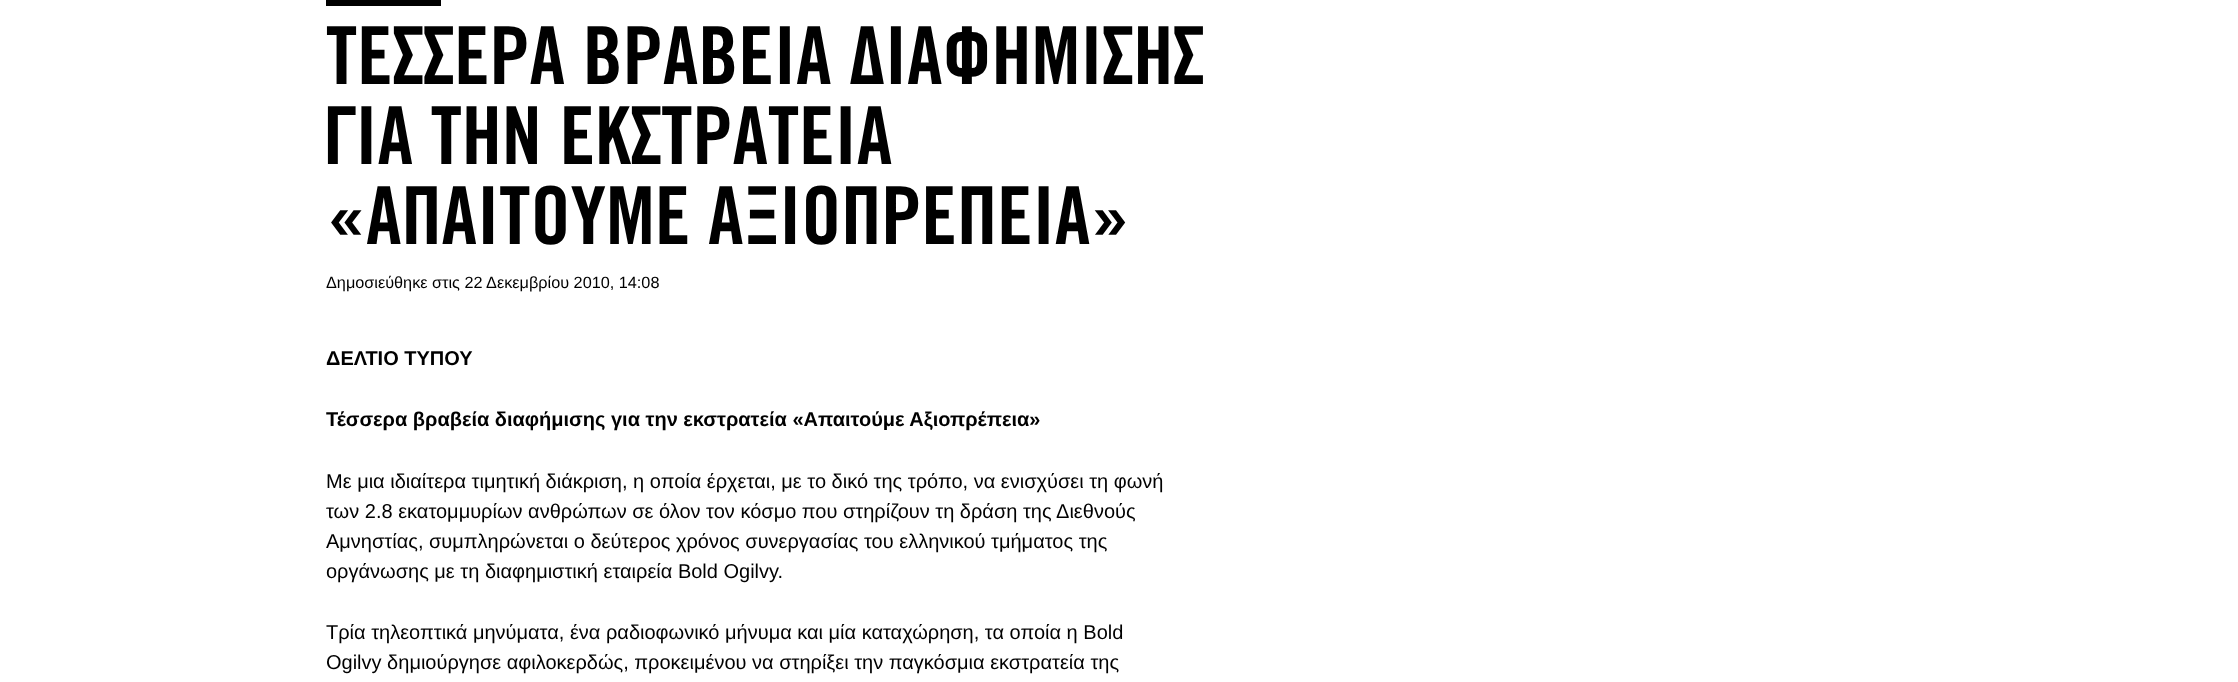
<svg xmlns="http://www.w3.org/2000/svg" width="2238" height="682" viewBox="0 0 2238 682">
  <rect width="100%" height="100%" fill="#fff"/>
  <path d="M326 0h115v6H326z" fill="#000"/>
  <g font-family="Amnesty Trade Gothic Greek" font-size="80" font-weight="bold" fill="#000">
    <text x="326" y="84">ΤΕΣΣΕΡΑ ΒΡΑΒΕΙΑ ΔΙΑΦΗΜΙΣΗΣ</text>
    <text x="326" y="164">ΓΙΑ ΤΗΝ ΕΚΣΤΡΑΤΕΙΑ</text>
    <text x="326" y="244">«ΑΠΑΙΤΟΥΜΕ ΑΞΙΟΠΡΕΠΕΙΑ»</text>
  </g>
  <text x="326" y="288" font-family="Liberation Sans" font-size="16.25" fill="#000">Δημοσιεύθηκε στις 22 Δεκεμβρίου 2010, 14:08</text>
  <g font-family="Liberation Sans" font-size="20" font-weight="bold" fill="#000">
    <text x="326" y="365">ΔΕΛΤΙΟ ΤΥΠΟΥ</text>
    <text x="326" y="426">Τέσσερα βραβεία διαφήμισης για την εκστρατεία «Απαιτούμε Αξιοπρέπεια»</text>
  </g>
  <g font-family="Liberation Sans" font-size="20" fill="#000">
    <text x="326" y="488">Με μια ιδιαίτερα τιμητική διάκριση, η οποία έρχεται, με το δικό της τρόπο, να ενισχύσει τη φωνή</text>
    <text x="326" y="518">των 2.8 εκατομμυρίων ανθρώπων σε όλον τον κόσμο που στηρίζουν τη δράση της Διεθνούς</text>
    <text x="326" y="548">Αμνηστίας, συμπληρώνεται ο δεύτερος χρόνος συνεργασίας του ελληνικού τμήματος της</text>
    <text x="326" y="578">οργάνωσης με τη διαφημιστική εταιρεία Bold Ogilvy.</text>
    <text x="326" y="639">Τρία τηλεοπτικά μηνύματα, ένα ραδιοφωνικό μήνυμα και μία καταχώρηση, τα οποία η Bold</text>
    <text x="326" y="669">Ogilvy δημιούργησε αφιλοκερδώς, προκειμένου να στηρίξει την παγκόσμια εκστρατεία της</text>
  </g>
</svg>
